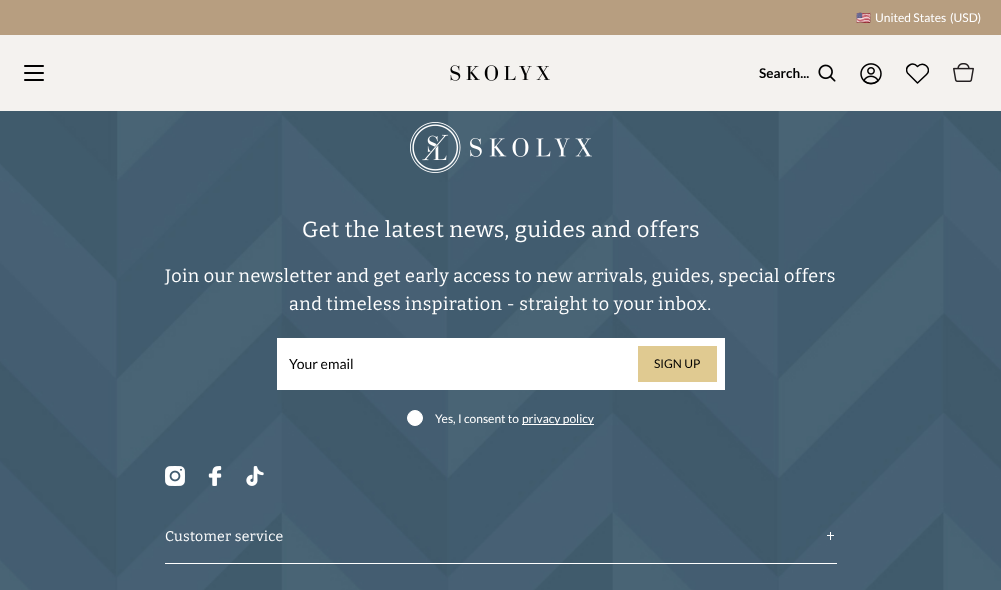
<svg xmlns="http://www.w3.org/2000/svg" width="1001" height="590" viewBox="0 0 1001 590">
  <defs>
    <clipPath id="clip1"><path d="M906 62H929V85H906Z"/></clipPath>
  </defs>
  <rect width="100%" height="100%" fill="#fff"/>
  <path d="M0 35h1001v76H0z" fill="#f4f2ef"/>
  <path d="M0 0h1001v35H0z" fill="#b79e80"/>
  <image x="24" y="65" width="20" height="16" href="img/1.png"/>
  <image x="450" y="65" width="100" height="16" href="img/2.png"/>
  <image x="818" y="64" width="18" height="18" href="img/3.png"/>
  <image x="860" y="63" width="22" height="22" href="img/4.png"/>
  <g clip-path="url(#clip1)">
    <path d="M926.5 74.5L917.5 83L907.5 73C904 66.5 912.5 61 917.5 66.5C923.5 60 932.5 69 926.5 74.5Z" fill="none" stroke="#000" stroke-width="1.5" stroke-linejoin="round"/>
  </g>
  <image x="953" y="63" width="21" height="19" href="img/5.png"/>
  <image x="0" y="111" width="1001" height="479" href="img/6.png"/>
  <image x="410" y="122" width="182" height="51" href="img/7.png"/>
  <path d="M277 338h448v52H277z" fill="#fff"/>
  <path d="M638 346h79v36H638z" fill="#e0ca91"/>
  <circle cx="415" cy="418" r="7.5" fill="#fff" stroke="#fff"/>
  <path d="M522 424h72v1H522z" fill="#fff"/>
  <image x="165" y="466" width="20" height="20" href="img/8.png"/>
  <image x="208" y="466" width="14" height="20" href="img/9.png"/>
  <image x="246" y="466" width="18" height="20" href="img/10.png"/>
  <path d="M165 563h672v1H165z" fill="#fff"/>
  <path d="M830 532h1v8H830z" fill="#fff"/>
  <path d="M827 535h7v1H827z" fill="#fff"/>
  <text x="856" y="22" font-family="Noto Color Emoji" font-size="12" fill="#fff">🇺🇸</text>
  <g font-family="Lato" font-size="12" fill="#fff">
    <text x="875" y="22">United States</text>
    <text x="950" y="22">(USD)</text>
  </g>
  <text x="759" y="78" font-family="Lato" font-size="13.5" font-weight="bold" fill="#000">Search...</text>
  <text x="302" y="237" font-family="Bitter" font-size="22" letter-spacing="0.55" fill="#fff">Get the latest news, guides and offers</text>
  <g font-family="Bitter" font-size="18" letter-spacing="0.45" fill="#fff">
    <text x="165" y="282">Join our newsletter and get early access to new arrivals, guides, special offers</text>
    <text x="289" y="310">and timeless inspiration - straight to your inbox.</text>
  </g>
  <text x="289" y="369" font-family="Lato" font-size="14" fill="#000">Your email</text>
  <text x="654" y="368" font-family="Lato" font-size="12" fill="#000">SIGN UP</text>
  <g font-family="Lato" font-size="12" fill="#fff">
    <text x="435" y="423">Yes, I consent to</text>
    <text x="522" y="423">privacy policy</text>
  </g>
  <text x="165" y="541" font-family="Bitter" font-size="14" letter-spacing="0.3" fill="#fff">Customer service</text>
</svg>
